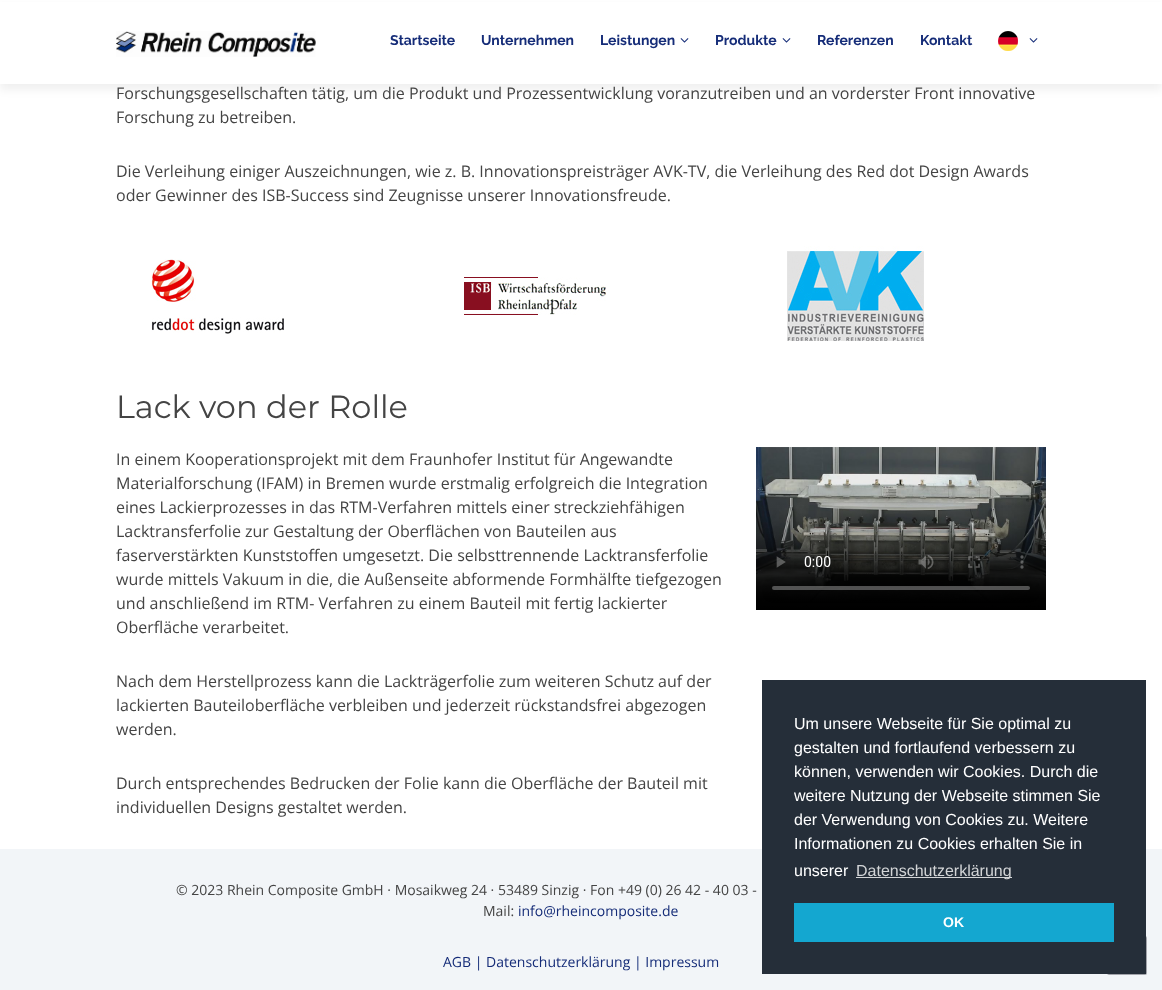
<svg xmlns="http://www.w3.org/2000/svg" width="1162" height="990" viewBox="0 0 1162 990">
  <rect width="100%" height="100%" fill="#fff"/>
  <path d="M0 6h1162v84H0z" fill="#0000000f" filter="blur(4.5px)"/>
  <path d="M0 2h1162v82H0z" fill="#fff"/>
  <image x="116" y="31" width="200" height="26" href="img/1.png"/>
  <image x="680" y="38" width="9" height="5" href="img/2.png"/>
  <image x="782" y="38" width="9" height="5" href="img/2.png"/>
  <image x="998" y="31" width="20" height="20" href="img/3.png"/>
  <image x="1029" y="38" width="9" height="5" href="img/2.png"/>
  <image x="151" y="259" width="133" height="75" href="img/4.png"/>
  <image x="464" y="277" width="142" height="38" href="img/5.png"/>
  <image x="787" y="246" width="137" height="95" href="img/6.png"/>
  <image x="756" y="447" width="290" height="163" href="img/7.png"/>
  <path d="M0 849h1162v141H0z" fill="#f2f5f8"/>
  <rect x="1107" y="936" width="40" height="39" rx="2" fill="#a2a4ab"/>
  <path d="M762 680h384v294H762z" fill="#252e39"/>
  <path d="M856 877h156v1H856z" fill="#d3d5d7"/>
  <path d="M794 903h320v39H794z" fill="#14a7d0"/>
  <g font-family="Raleway" font-size="14" font-weight="bold" fill="#152c78">
    <text x="390" y="45">Startseite</text>
    <text x="481" y="45">Unternehmen</text>
    <text x="600" y="45">Leistungen</text>
    <text x="715" y="45">Produkte</text>
    <text x="817" y="45">Referenzen</text>
    <text x="920" y="45">Kontakt</text>
  </g>
  <g font-family="Open Sans" font-size="16" fill="#444">
    <text x="116" y="99">Forschungsgesellschaften tätig, um die Produkt und Prozessentwicklung voranzutreiben und an vorderster Front innovative</text>
    <text x="116" y="123">Forschung zu betreiben.</text>
    <text x="116" y="177">Die Verleihung einiger Auszeichnungen, wie z. B. Innovationspreisträger AVK-TV, die Verleihung des Red dot Design Awards</text>
    <text x="116" y="201">oder Gewinner des ISB-Success sind Zeugnisse unserer Innovationsfreude.</text>
  </g>
  <text x="116" y="418" font-family="Montserrat" font-size="32" fill="#444">Lack von der Rolle</text>
  <g font-family="Open Sans" font-size="16" fill="#444">
    <text x="116" y="465">In einem Kooperationsprojekt mit dem Fraunhofer Institut für Angewandte</text>
    <text x="116" y="489">Materialforschung (IFAM) in Bremen wurde erstmalig erfolgreich die Integration</text>
    <text x="116" y="513">eines Lackierprozesses in das RTM-Verfahren mittels einer streckziehfähigen</text>
    <text x="116" y="537">Lacktransferfolie zur Gestaltung der Oberflächen von Bauteilen aus</text>
    <text x="116" y="561">faserverstärkten Kunststoffen umgesetzt. Die selbsttrennende Lacktransferfolie</text>
    <text x="116" y="585">wurde mittels Vakuum in die, die Außenseite abformende Formhälfte tiefgezogen</text>
    <text x="116" y="609">und anschließend im RTM- Verfahren zu einem Bauteil mit fertig lackierter</text>
    <text x="116" y="633">Oberfläche verarbeitet.</text>
    <text x="116" y="687">Nach dem Herstellprozess kann die Lackträgerfolie zum weiteren Schutz auf der</text>
    <text x="116" y="711">lackierten Bauteiloberfläche verbleiben und jederzeit rückstandsfrei abgezogen</text>
    <text x="116" y="735">werden.</text>
    <text x="116" y="789">Durch entsprechendes Bedrucken der Folie kann die Oberfläche der Bauteil mit</text>
    <text x="116" y="813">individuellen Designs gestaltet werden.</text>
  </g>
  <g font-family="Liberation Sans" font-size="16" fill="#fff">
    <text x="794" y="729">Um unsere Webseite für Sie optimal zu</text>
    <text x="794" y="753">gestalten und fortlaufend verbessern zu</text>
    <text x="794" y="777">können, verwenden wir Cookies. Durch die</text>
    <text x="794" y="801">weitere Nutzung der Webseite stimmen Sie</text>
    <text x="794" y="825">der Verwendung von Cookies zu. Weitere</text>
    <text x="794" y="849">Informationen zu Cookies erhalten Sie in</text>
    <text x="794" y="876">unserer</text>
  </g>
  <text x="856" y="876" font-family="Liberation Sans" font-size="16" fill="#d3d5d7">Datenschutzerklärung</text>
  <text x="943" y="927" font-family="Liberation Sans" font-size="14" font-weight="bold" fill="#fff">OK</text>
  <g font-family="Open Sans" font-size="14" fill="#444">
    <text x="176" y="895">© 2023 Rhein Composite GmbH · Mosaikweg 24 · 53489 Sinzig · Fon +49 (0) 26 42 - 40 03 -</text>
    <text x="483" y="916">Mail:</text>
  </g>
  <g font-family="Open Sans" font-size="14" fill="#152c78">
    <text x="518" y="916">info@rheincomposite.de</text>
    <text x="443" y="967">AGB | Datenschutzerklärung | Impressum</text>
  </g>
</svg>
